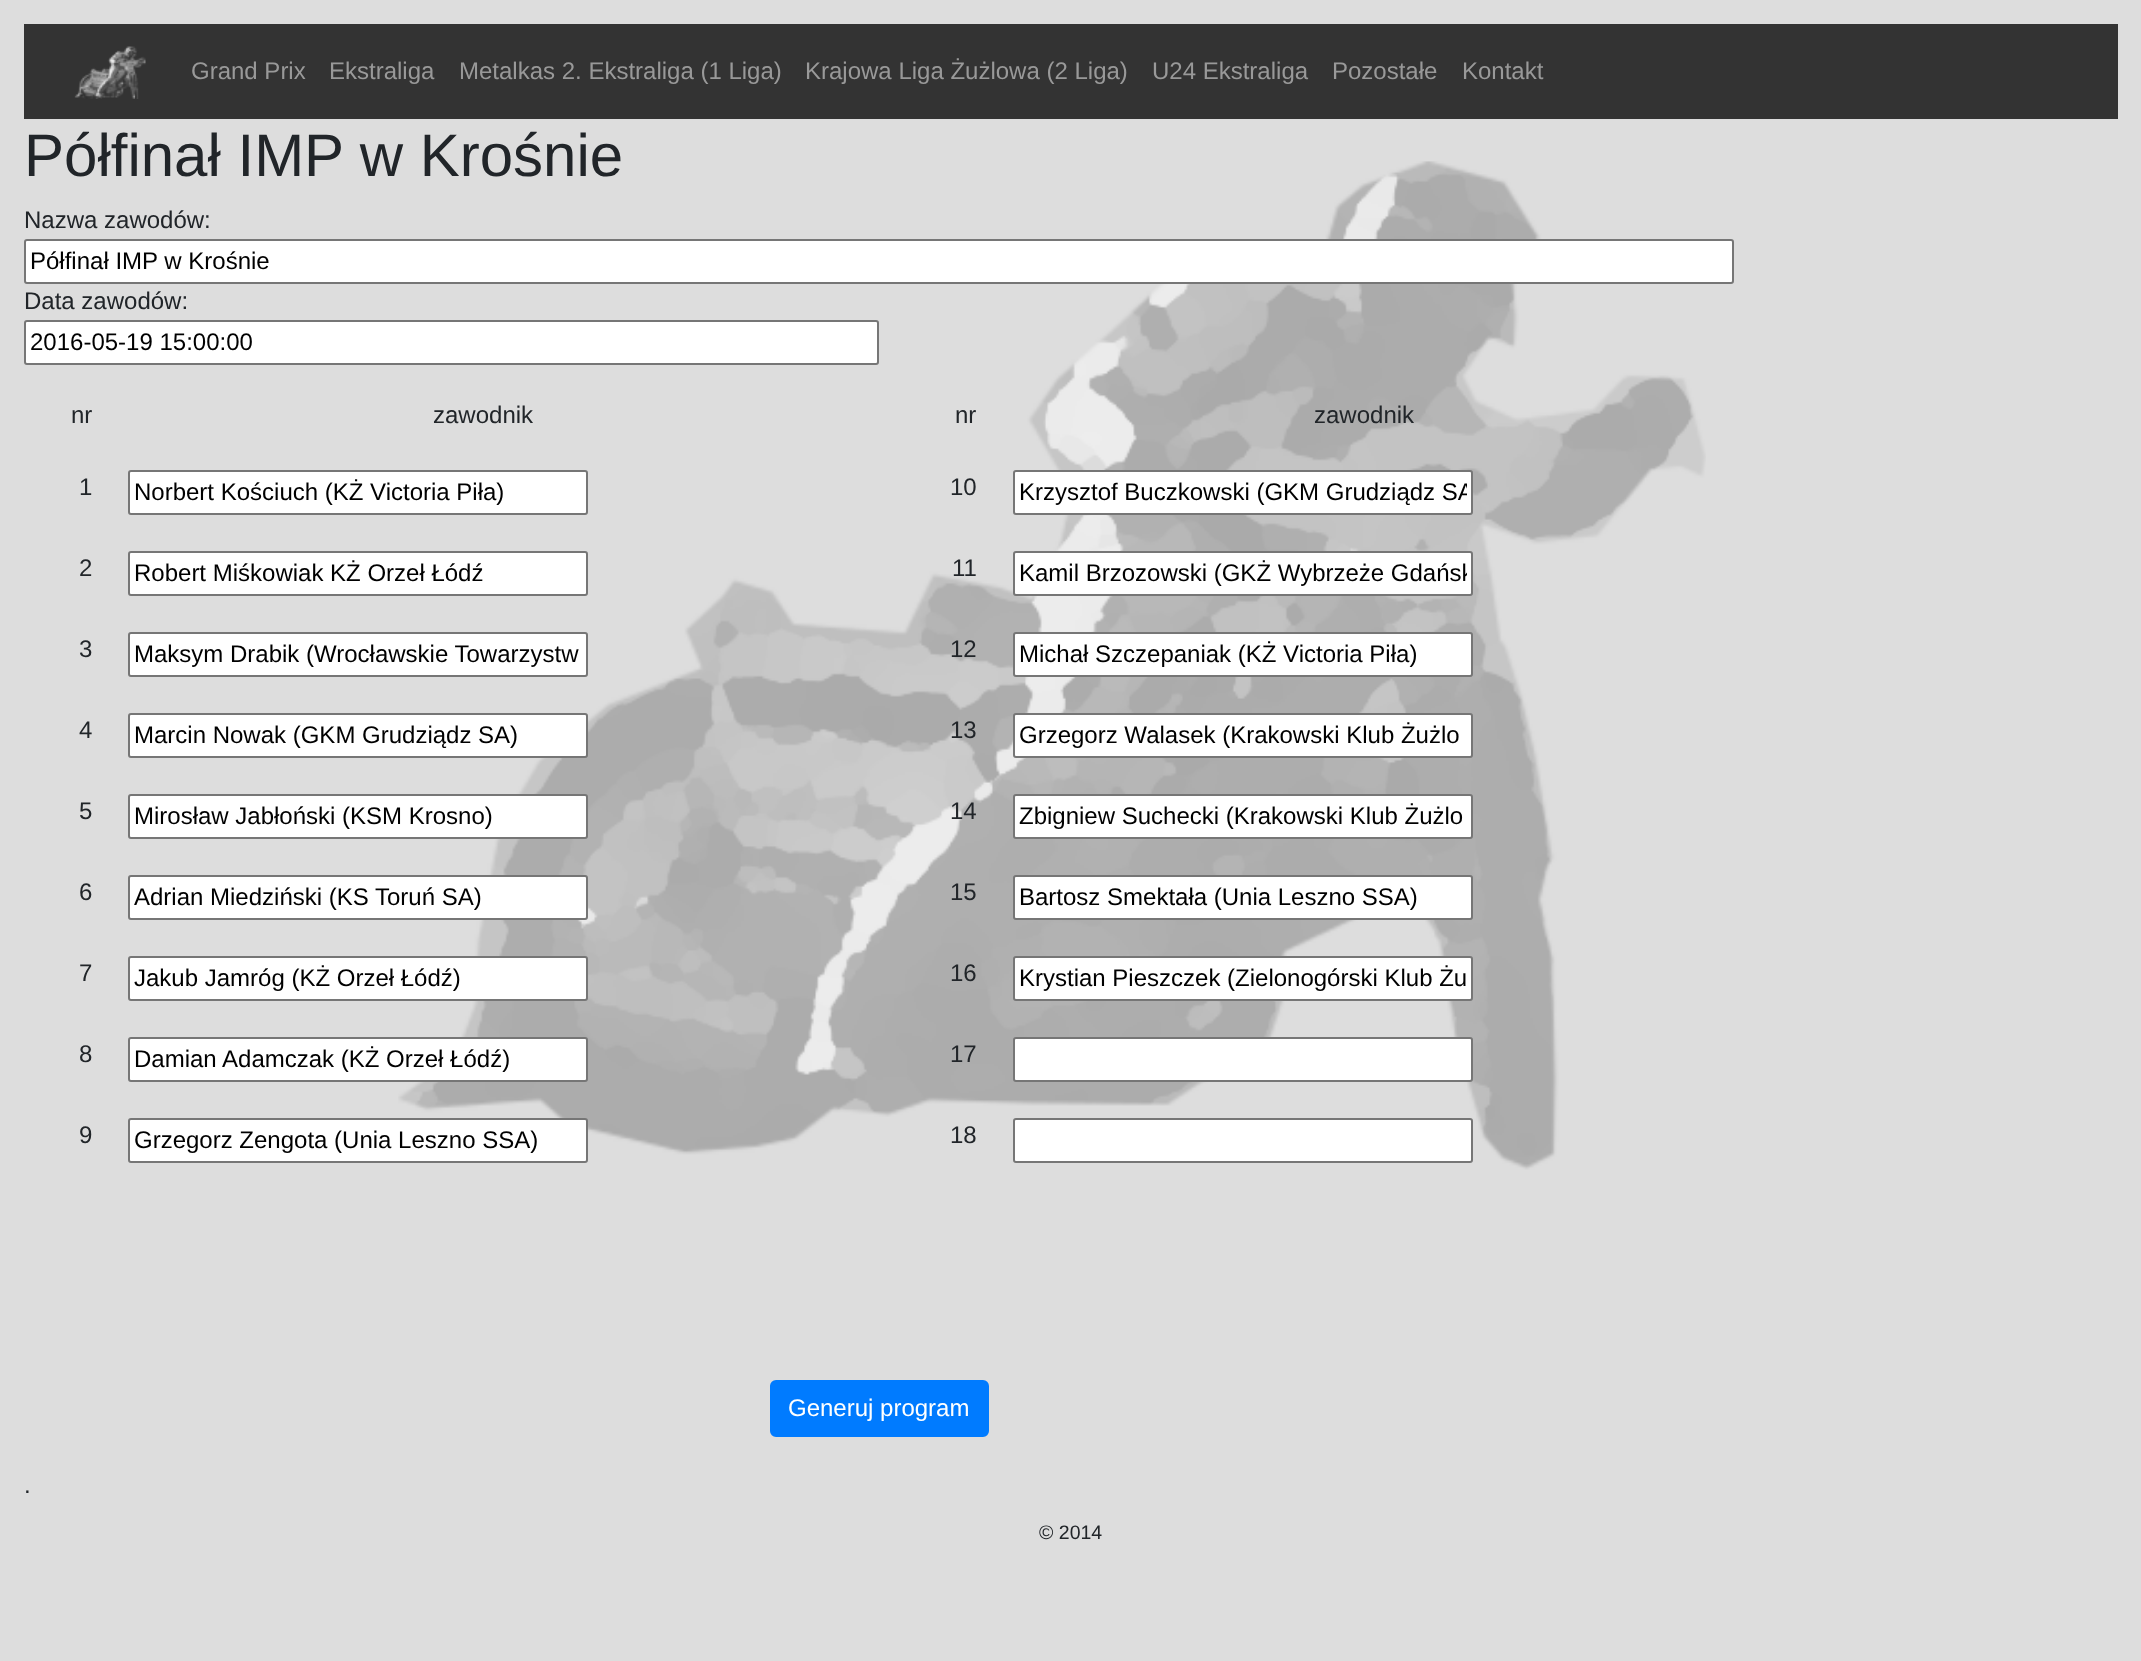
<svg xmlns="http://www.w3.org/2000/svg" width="2141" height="1661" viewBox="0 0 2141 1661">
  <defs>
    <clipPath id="clip1"><path d="M1019 474h448v36H1019z"/></clipPath>
    <clipPath id="clip2"><path d="M1019 555h448v36H1019z"/></clipPath>
  </defs>
  <rect width="100%" height="100%" fill="#ddd"/>
  <image x="398" y="161" width="1308" height="1009" href="img/1.png"/>
  <path d="M24 24h2094v95H24z" fill="#333"/>
  <image x="74" y="46" width="72" height="53" href="img/2.png"/>
  <rect x="25" y="240" width="1708" height="43" rx="2" fill="#fff" stroke="#767676" stroke-width="2"/>
  <rect x="25" y="321" width="853" height="43" rx="2" fill="#fff" stroke="#767676" stroke-width="2"/>
  <rect x="129" y="471" width="458" height="43" rx="2" fill="#fff" stroke="#767676" stroke-width="2"/>
  <rect x="129" y="552" width="458" height="43" rx="2" fill="#fff" stroke="#767676" stroke-width="2"/>
  <rect x="129" y="633" width="458" height="43" rx="2" fill="#fff" stroke="#767676" stroke-width="2"/>
  <rect x="129" y="714" width="458" height="43" rx="2" fill="#fff" stroke="#767676" stroke-width="2"/>
  <rect x="129" y="795" width="458" height="43" rx="2" fill="#fff" stroke="#767676" stroke-width="2"/>
  <rect x="129" y="876" width="458" height="43" rx="2" fill="#fff" stroke="#767676" stroke-width="2"/>
  <rect x="129" y="957" width="458" height="43" rx="2" fill="#fff" stroke="#767676" stroke-width="2"/>
  <rect x="129" y="1038" width="458" height="43" rx="2" fill="#fff" stroke="#767676" stroke-width="2"/>
  <rect x="129" y="1119" width="458" height="43" rx="2" fill="#fff" stroke="#767676" stroke-width="2"/>
  <rect x="1014" y="471" width="458" height="43" rx="2" fill="#fff" stroke="#767676" stroke-width="2"/>
  <rect x="1014" y="552" width="458" height="43" rx="2" fill="#fff" stroke="#767676" stroke-width="2"/>
  <rect x="1014" y="633" width="458" height="43" rx="2" fill="#fff" stroke="#767676" stroke-width="2"/>
  <rect x="1014" y="714" width="458" height="43" rx="2" fill="#fff" stroke="#767676" stroke-width="2"/>
  <rect x="1014" y="795" width="458" height="43" rx="2" fill="#fff" stroke="#767676" stroke-width="2"/>
  <rect x="1014" y="876" width="458" height="43" rx="2" fill="#fff" stroke="#767676" stroke-width="2"/>
  <rect x="1014" y="957" width="458" height="43" rx="2" fill="#fff" stroke="#767676" stroke-width="2"/>
  <rect x="1014" y="1038" width="458" height="43" rx="2" fill="#fff" stroke="#767676" stroke-width="2"/>
  <rect x="1014" y="1119" width="458" height="43" rx="2" fill="#fff" stroke="#767676" stroke-width="2"/>
  <rect x="771" y="1381" width="217" height="55" rx="5" fill="#007bff" stroke="#007bff" stroke-width="2"/>
  <g font-family="Liberation Sans" font-size="24" fill="#999">
    <text x="191" y="79">Grand Prix</text>
    <text x="329" y="79">Ekstraliga</text>
    <text x="459" y="79">Metalkas 2. Ekstraliga (1 Liga)</text>
    <text x="805" y="79">Krajowa Liga Żużlowa (2 Liga)</text>
    <text x="1152" y="79">U24 Ekstraliga</text>
    <text x="1332" y="79">Pozostałe</text>
    <text x="1462" y="79">Kontakt</text>
  </g>
  <text x="24" y="176" font-family="Liberation Sans" font-size="60" fill="#212529">Półfinał IMP w Krośnie</text>
  <text x="24" y="228" font-family="Liberation Sans" font-size="24" fill="#212529">Nazwa zawodów:</text>
  <text x="30" y="269" font-family="Liberation Sans" font-size="24" fill="#000">Półfinał IMP w Krośnie</text>
  <text x="24" y="309" font-family="Liberation Sans" font-size="24" fill="#212529">Data zawodów:</text>
  <text x="30" y="350" font-family="Liberation Sans" font-size="24" fill="#000">2016-05-19 15:00:00</text>
  <g font-family="Liberation Sans" font-size="24" fill="#212529">
    <text x="71" y="423">nr</text>
    <text x="433" y="423">zawodnik</text>
    <text x="79" y="495">1</text>
  </g>
  <text x="134" y="500" font-family="Liberation Sans" font-size="24" fill="#000">Norbert Kościuch (KŻ Victoria Piła)</text>
  <text x="79" y="576" font-family="Liberation Sans" font-size="24" fill="#212529">2</text>
  <text x="134" y="581" font-family="Liberation Sans" font-size="24" fill="#000">Robert Miśkowiak KŻ Orzeł Łódź</text>
  <text x="79" y="657" font-family="Liberation Sans" font-size="24" fill="#212529">3</text>
  <text x="134" y="662" font-family="Liberation Sans" font-size="24" fill="#000">Maksym Drabik (Wrocławskie Towarzystw</text>
  <text x="79" y="738" font-family="Liberation Sans" font-size="24" fill="#212529">4</text>
  <text x="134" y="743" font-family="Liberation Sans" font-size="24" fill="#000">Marcin Nowak (GKM Grudziądz SA)</text>
  <text x="79" y="819" font-family="Liberation Sans" font-size="24" fill="#212529">5</text>
  <text x="134" y="824" font-family="Liberation Sans" font-size="24" fill="#000">Mirosław Jabłoński (KSM Krosno)</text>
  <text x="79" y="900" font-family="Liberation Sans" font-size="24" fill="#212529">6</text>
  <text x="134" y="905" font-family="Liberation Sans" font-size="24" fill="#000">Adrian Miedziński (KS Toruń SA)</text>
  <text x="79" y="981" font-family="Liberation Sans" font-size="24" fill="#212529">7</text>
  <text x="134" y="986" font-family="Liberation Sans" font-size="24" fill="#000">Jakub Jamróg (KŻ Orzeł Łódź)</text>
  <text x="79" y="1062" font-family="Liberation Sans" font-size="24" fill="#212529">8</text>
  <text x="134" y="1067" font-family="Liberation Sans" font-size="24" fill="#000">Damian Adamczak (KŻ Orzeł Łódź)</text>
  <text x="79" y="1143" font-family="Liberation Sans" font-size="24" fill="#212529">9</text>
  <text x="134" y="1148" font-family="Liberation Sans" font-size="24" fill="#000">Grzegorz Zengota (Unia Leszno SSA)</text>
  <g font-family="Liberation Sans" font-size="24" fill="#212529">
    <text x="955" y="423">nr</text>
    <text x="1314" y="423">zawodnik</text>
    <text x="950" y="495">10</text>
  </g>
  <g clip-path="url(#clip1)">
    <text x="1019" y="500" font-family="Liberation Sans" font-size="24" fill="#000">Krzysztof Buczkowski (GKM Grudziądz SA</text>
  </g>
  <text x="952" y="576" font-family="Liberation Sans" font-size="24" fill="#212529">11</text>
  <g clip-path="url(#clip2)">
    <text x="1019" y="581" font-family="Liberation Sans" font-size="24" fill="#000">Kamil Brzozowski (GKŻ Wybrzeże Gdańsk</text>
  </g>
  <text x="950" y="657" font-family="Liberation Sans" font-size="24" fill="#212529">12</text>
  <text x="1019" y="662" font-family="Liberation Sans" font-size="24" fill="#000">Michał Szczepaniak (KŻ Victoria Piła)</text>
  <text x="950" y="738" font-family="Liberation Sans" font-size="24" fill="#212529">13</text>
  <text x="1019" y="743" font-family="Liberation Sans" font-size="24" fill="#000">Grzegorz Walasek (Krakowski Klub Żużlo</text>
  <text x="950" y="819" font-family="Liberation Sans" font-size="24" fill="#212529">14</text>
  <text x="1019" y="824" font-family="Liberation Sans" font-size="24" fill="#000">Zbigniew Suchecki (Krakowski Klub Żużlo</text>
  <text x="950" y="900" font-family="Liberation Sans" font-size="24" fill="#212529">15</text>
  <text x="1019" y="905" font-family="Liberation Sans" font-size="24" fill="#000">Bartosz Smektała (Unia Leszno SSA)</text>
  <text x="950" y="981" font-family="Liberation Sans" font-size="24" fill="#212529">16</text>
  <text x="1019" y="986" font-family="Liberation Sans" font-size="24" fill="#000">Krystian Pieszczek (Zielonogórski Klub Żu</text>
  <g font-family="Liberation Sans" font-size="24" fill="#212529">
    <text x="950" y="1062">17</text>
    <text x="950" y="1143">18</text>
  </g>
  <text x="788" y="1416" font-family="Liberation Sans" font-size="24" fill="#fff">Generuj program</text>
  <text x="24" y="1493" font-family="Liberation Sans" font-size="24" fill="#212529">.</text>
  <text x="1039" y="1539" font-family="Liberation Sans" font-size="19.5" fill="#212529">© 2014</text>
</svg>
